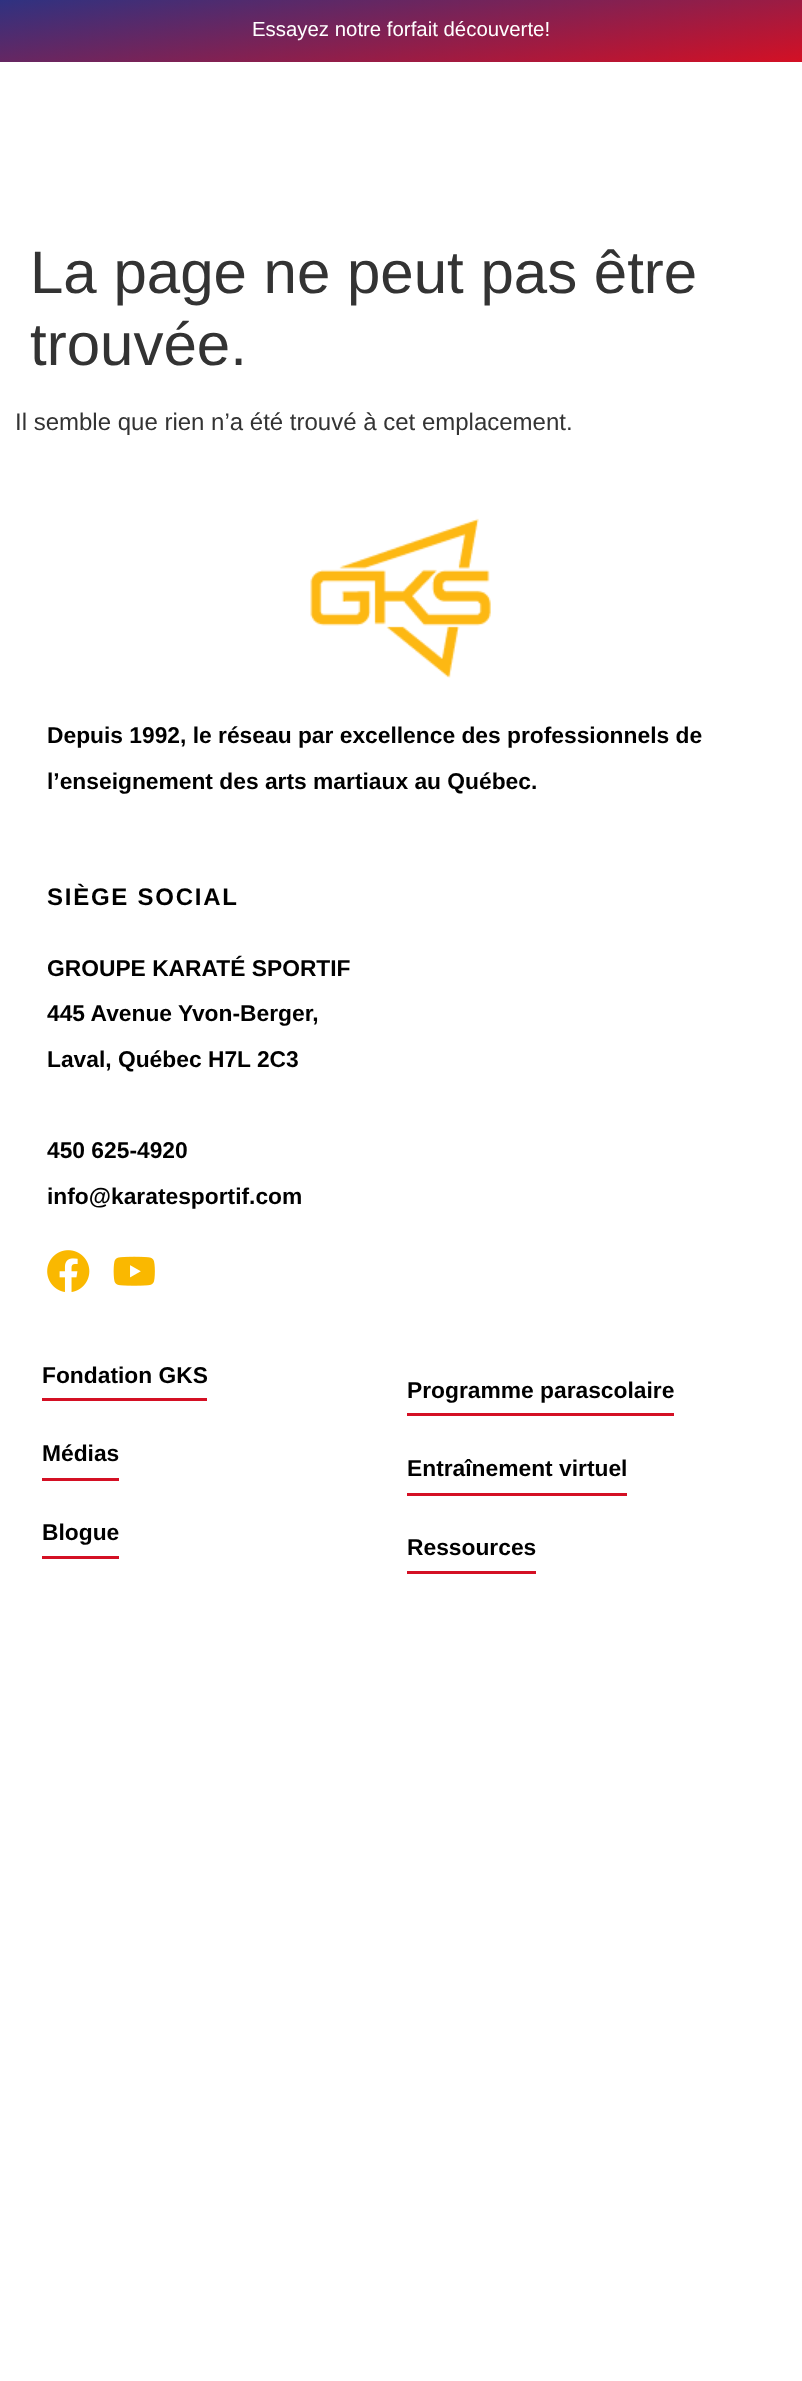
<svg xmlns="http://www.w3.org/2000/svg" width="802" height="2381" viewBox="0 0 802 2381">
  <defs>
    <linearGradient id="g1" gradientUnits="userSpaceOnUse" x1="387" y1="-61" x2="416" y2="123"><stop offset="0" stop-color="#2f3281"/><stop offset="1" stop-color="#d41024"/></linearGradient>
  </defs>
  <rect width="100%" height="100%" fill="#fff"/>
  <path d="M0 0h802v62H0z" fill="url(#g1)"/>
  <image x="310" y="518" width="181" height="160" href="img/1.png"/>
  <image x="47" y="1250" width="43" height="42" href="img/2.png"/>
  <image x="113" y="1256" width="42" height="30" href="img/3.png"/>
  <path d="M42 1398h165v3H42z" fill="#d41024"/>
  <path d="M42 1478h77v3H42z" fill="#d41024"/>
  <path d="M42 1556h77v3H42z" fill="#d41024"/>
  <path d="M407 1413h267v3H407z" fill="#d41024"/>
  <path d="M407 1493h220v3H407z" fill="#d41024"/>
  <path d="M407 1571h129v3H407z" fill="#d41024"/>
  <text x="252" y="36" font-family="Liberation Sans" font-size="20.4" fill="#fff">Essayez notre forfait découverte!</text>
  <g font-family="Liberation Sans" font-size="60" fill="#333">
    <text x="30" y="293">La page ne peut pas être</text>
    <text x="30" y="365">trouvée.</text>
  </g>
  <text x="15" y="430" font-family="Liberation Sans" font-size="24" fill="#333">Il semble que rien n’a été trouvé à cet emplacement.</text>
  <g font-family="Liberation Sans" font-size="22.8" font-weight="bold" fill="#000">
    <text x="47" y="743">Depuis 1992, le réseau par excellence des professionnels de</text>
    <text x="47" y="789">l’enseignement des arts martiaux au Québec.</text>
  </g>
  <text x="47" y="905" font-family="Liberation Sans" font-size="24" font-weight="bold" letter-spacing="1.75" fill="#000">SIÈGE SOCIAL</text>
  <g font-family="Liberation Sans" font-size="22.8" font-weight="bold" fill="#000">
    <text x="47" y="976">GROUPE KARATÉ SPORTIF</text>
    <text x="47" y="1021">445 Avenue Yvon-Berger,</text>
    <text x="47" y="1067">Laval, Québec H7L 2C3</text>
    <text x="47" y="1158">450 625-4920</text>
    <text x="47" y="1204">info@karatesportif.com</text>
    <text x="42" y="1383">Fondation GKS</text>
    <text x="42" y="1461">Médias</text>
    <text x="42" y="1540">Blogue</text>
    <text x="407" y="1398">Programme parascolaire</text>
    <text x="407" y="1476">Entraînement virtuel</text>
    <text x="407" y="1555">Ressources</text>
  </g>
</svg>
